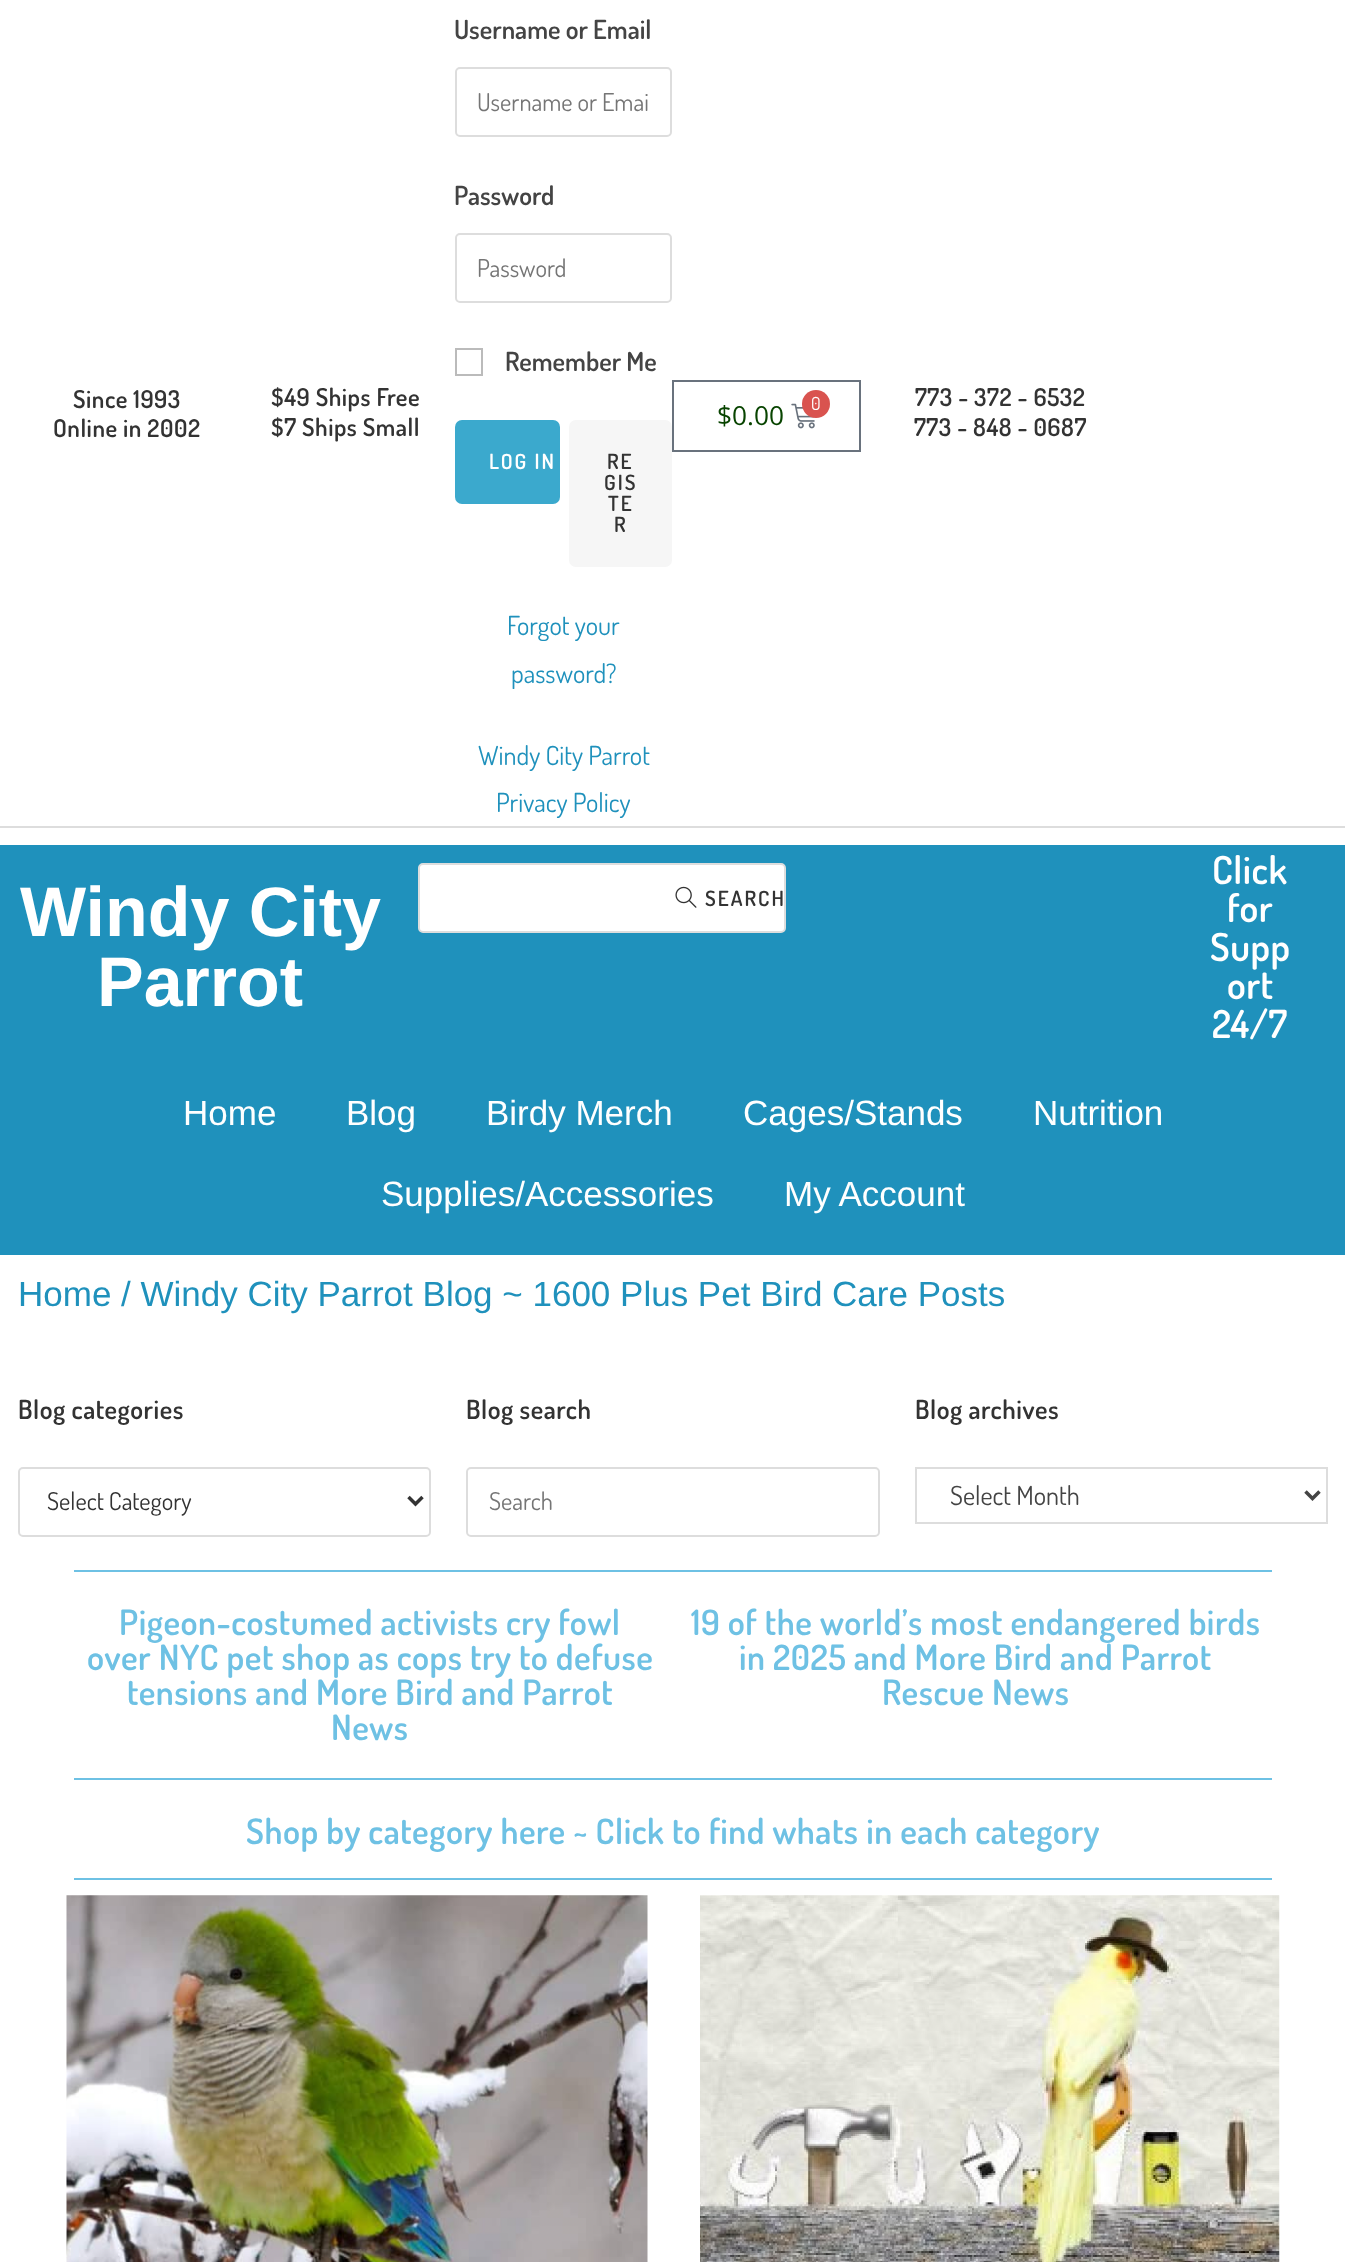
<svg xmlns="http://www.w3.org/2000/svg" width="1345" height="2262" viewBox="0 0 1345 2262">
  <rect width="100%" height="100%" fill="#fff"/>
  <path d="M0 826h1345v2H0z" fill="#ddd"/>
  <rect x="456" y="68" width="215" height="68" rx="4" fill="none" stroke="#ddd" stroke-width="2"/>
  <rect x="456" y="234" width="215" height="68" rx="4" fill="none" stroke="#ddd" stroke-width="2"/>
  <path d="M456 349h26v26H456z" fill="none" stroke="#bbb" stroke-width="2"/>
  <rect x="455" y="420" width="105" height="84" rx="7" fill="#3ba9cd"/>
  <rect x="569" y="420" width="103" height="147" rx="7" fill="#f6f6f6"/>
  <path d="M673 381h187v70H673z" fill="none" stroke="#69727d" stroke-width="2"/>
  <image x="791" y="403" width="24" height="26" href="img/1.png"/>
  <circle cx="816" cy="404" r="14" fill="#d9534f"/>
  <path d="M0 845h1345v410H0z" fill="#1f91bc"/>
  <rect x="419" y="864" width="366" height="68" rx="4" fill="#fff" stroke="#ddd" stroke-width="2"/>
  <image x="675" y="886" width="22" height="22" href="img/2.png"/>
  <rect x="19" y="1468" width="411" height="68" rx="4" fill="none" stroke="#ddd" stroke-width="2"/>
  <path d="M408.5 1497L415.5 1504L422.5 1497" fill="none" stroke="#333" stroke-width="3.5"/>
  <rect x="467" y="1468" width="412" height="68" rx="4" fill="none" stroke="#ddd" stroke-width="2"/>
  <path d="M916 1468h411v55H916z" fill="none" stroke="#ddd" stroke-width="2"/>
  <path d="M1305.5 1491.5L1312.5 1498.5L1319.5 1491.5" fill="none" stroke="#444" stroke-width="3.5"/>
  <path d="M74 1570h1198v2H74z" fill="#6ec1e4"/>
  <path d="M74 1778h1198v2H74z" fill="#6ec1e4"/>
  <path d="M74 1878h1198v2H74z" fill="#6ec1e4"/>
  <image x="66" y="1895" width="582" height="367" href="img/3.png"/>
  <image x="700" y="1895" width="580" height="367" href="img/4.png"/>
  <g font-family="Dosis" font-size="24.5" font-weight="600" letter-spacing="0.53" fill="#333">
    <text x="73" y="408">Since 1993</text>
    <text x="53" y="437">Online in 2002</text>
    <text x="271" y="406">$49 Ships Free</text>
    <text x="271" y="436">$7 Ships Small</text>
  </g>
  <text x="454" y="39" font-family="Dosis" font-size="26.25" font-weight="600" fill="#444">Username or Email</text>
  <text x="477" y="111" font-family="Dosis" font-size="24.5" fill="#757575">Username or Emai</text>
  <text x="454" y="205" font-family="Dosis" font-size="26.25" font-weight="600" fill="#444">Password</text>
  <text x="477" y="277" font-family="Dosis" font-size="24.5" fill="#757575">Password</text>
  <text x="505" y="371" font-family="Dosis" font-size="26.25" font-weight="600" fill="#444">Remember Me</text>
  <text x="489" y="469" font-family="Dosis" font-size="21" font-weight="600" letter-spacing="2" fill="#fff">LOG IN</text>
  <g font-family="Dosis" font-size="21" font-weight="600" letter-spacing="2" fill="#333">
    <text x="607" y="469">RE</text>
    <text x="604" y="490">GIS</text>
    <text x="608" y="511">TE</text>
    <text x="614" y="532">R</text>
  </g>
  <g font-family="Dosis" font-size="26.25" fill="#1f91bc">
    <text x="507" y="635">Forgot your</text>
    <text x="511" y="683">password?</text>
    <text x="478" y="765">Windy City Parrot</text>
    <text x="496" y="812">Privacy Policy</text>
  </g>
  <text x="717" y="425" font-family="Open Sans" font-size="26.25" fill="#084400">$0.00</text>
  <text x="811" y="410" font-family="Dosis" font-size="18" fill="#fff">0</text>
  <g font-family="Dosis" font-size="24.5" font-weight="600" letter-spacing="0.53" fill="#333">
    <text x="915" y="406">773 - 372 - 6532</text>
    <text x="914" y="436">773 - 848 - 0687</text>
  </g>
  <g font-family="Liberation Sans" font-size="70" font-weight="bold" fill="#fff">
    <text x="20" y="936">Windy City</text>
    <text x="97" y="1006">Parrot</text>
  </g>
  <text x="705" y="906" font-family="Dosis" font-size="21" font-weight="600" letter-spacing="2" fill="#333">SEARCH</text>
  <g font-family="Dosis" font-size="38.5" font-weight="600" letter-spacing="0.53" fill="#fff">
    <text x="1212" y="884">Click</text>
    <text x="1227" y="922">for</text>
    <text x="1210" y="961">Supp</text>
    <text x="1227" y="999">ort</text>
    <text x="1212" y="1038">24/7</text>
  </g>
  <g font-family="Liberation Sans" font-size="35" fill="#fff">
    <text x="183" y="1125">Home</text>
    <text x="346" y="1125">Blog</text>
    <text x="486" y="1125">Birdy Merch</text>
    <text x="743" y="1125">Cages/Stands</text>
    <text x="1033" y="1125">Nutrition</text>
    <text x="381" y="1206">Supplies/Accessories</text>
    <text x="784" y="1206">My Account</text>
  </g>
  <text x="18" y="1306" font-family="Liberation Sans" font-size="35" fill="#1f91bc">Home / Windy City Parrot Blog ~ 1600 Plus Pet Bird Care Posts</text>
  <text x="18" y="1419" font-family="Dosis" font-size="26.25" font-weight="600" letter-spacing="0.53" fill="#333">Blog categories</text>
  <text x="47" y="1510" font-family="Dosis" font-size="24.5" fill="#333">Select Category</text>
  <text x="466" y="1419" font-family="Dosis" font-size="26.25" font-weight="600" letter-spacing="0.53" fill="#333">Blog search</text>
  <text x="489" y="1510" font-family="Dosis" font-size="24.5" fill="#757575">Search</text>
  <text x="915" y="1419" font-family="Dosis" font-size="26.25" font-weight="600" letter-spacing="0.53" fill="#333">Blog archives</text>
  <text x="950" y="1505" font-family="Dosis" font-size="26.25" fill="#444">Select Month</text>
  <g font-family="Dosis" font-size="35" font-weight="600" letter-spacing="0.53" fill="#6ec1e4">
    <text x="119" y="1635">Pigeon-costumed activists cry fowl</text>
    <text x="87" y="1670">over NYC pet shop as cops try to defuse</text>
    <text x="127" y="1705">tensions and More Bird and Parrot</text>
    <text x="331" y="1740">News</text>
    <text x="691" y="1635">19 of the world’s most endangered birds</text>
    <text x="739" y="1670">in 2025 and More Bird and Parrot</text>
    <text x="882" y="1705">Rescue News</text>
    <text x="246" y="1844">Shop by category here ~ Click to find whats in each category</text>
  </g>
</svg>
